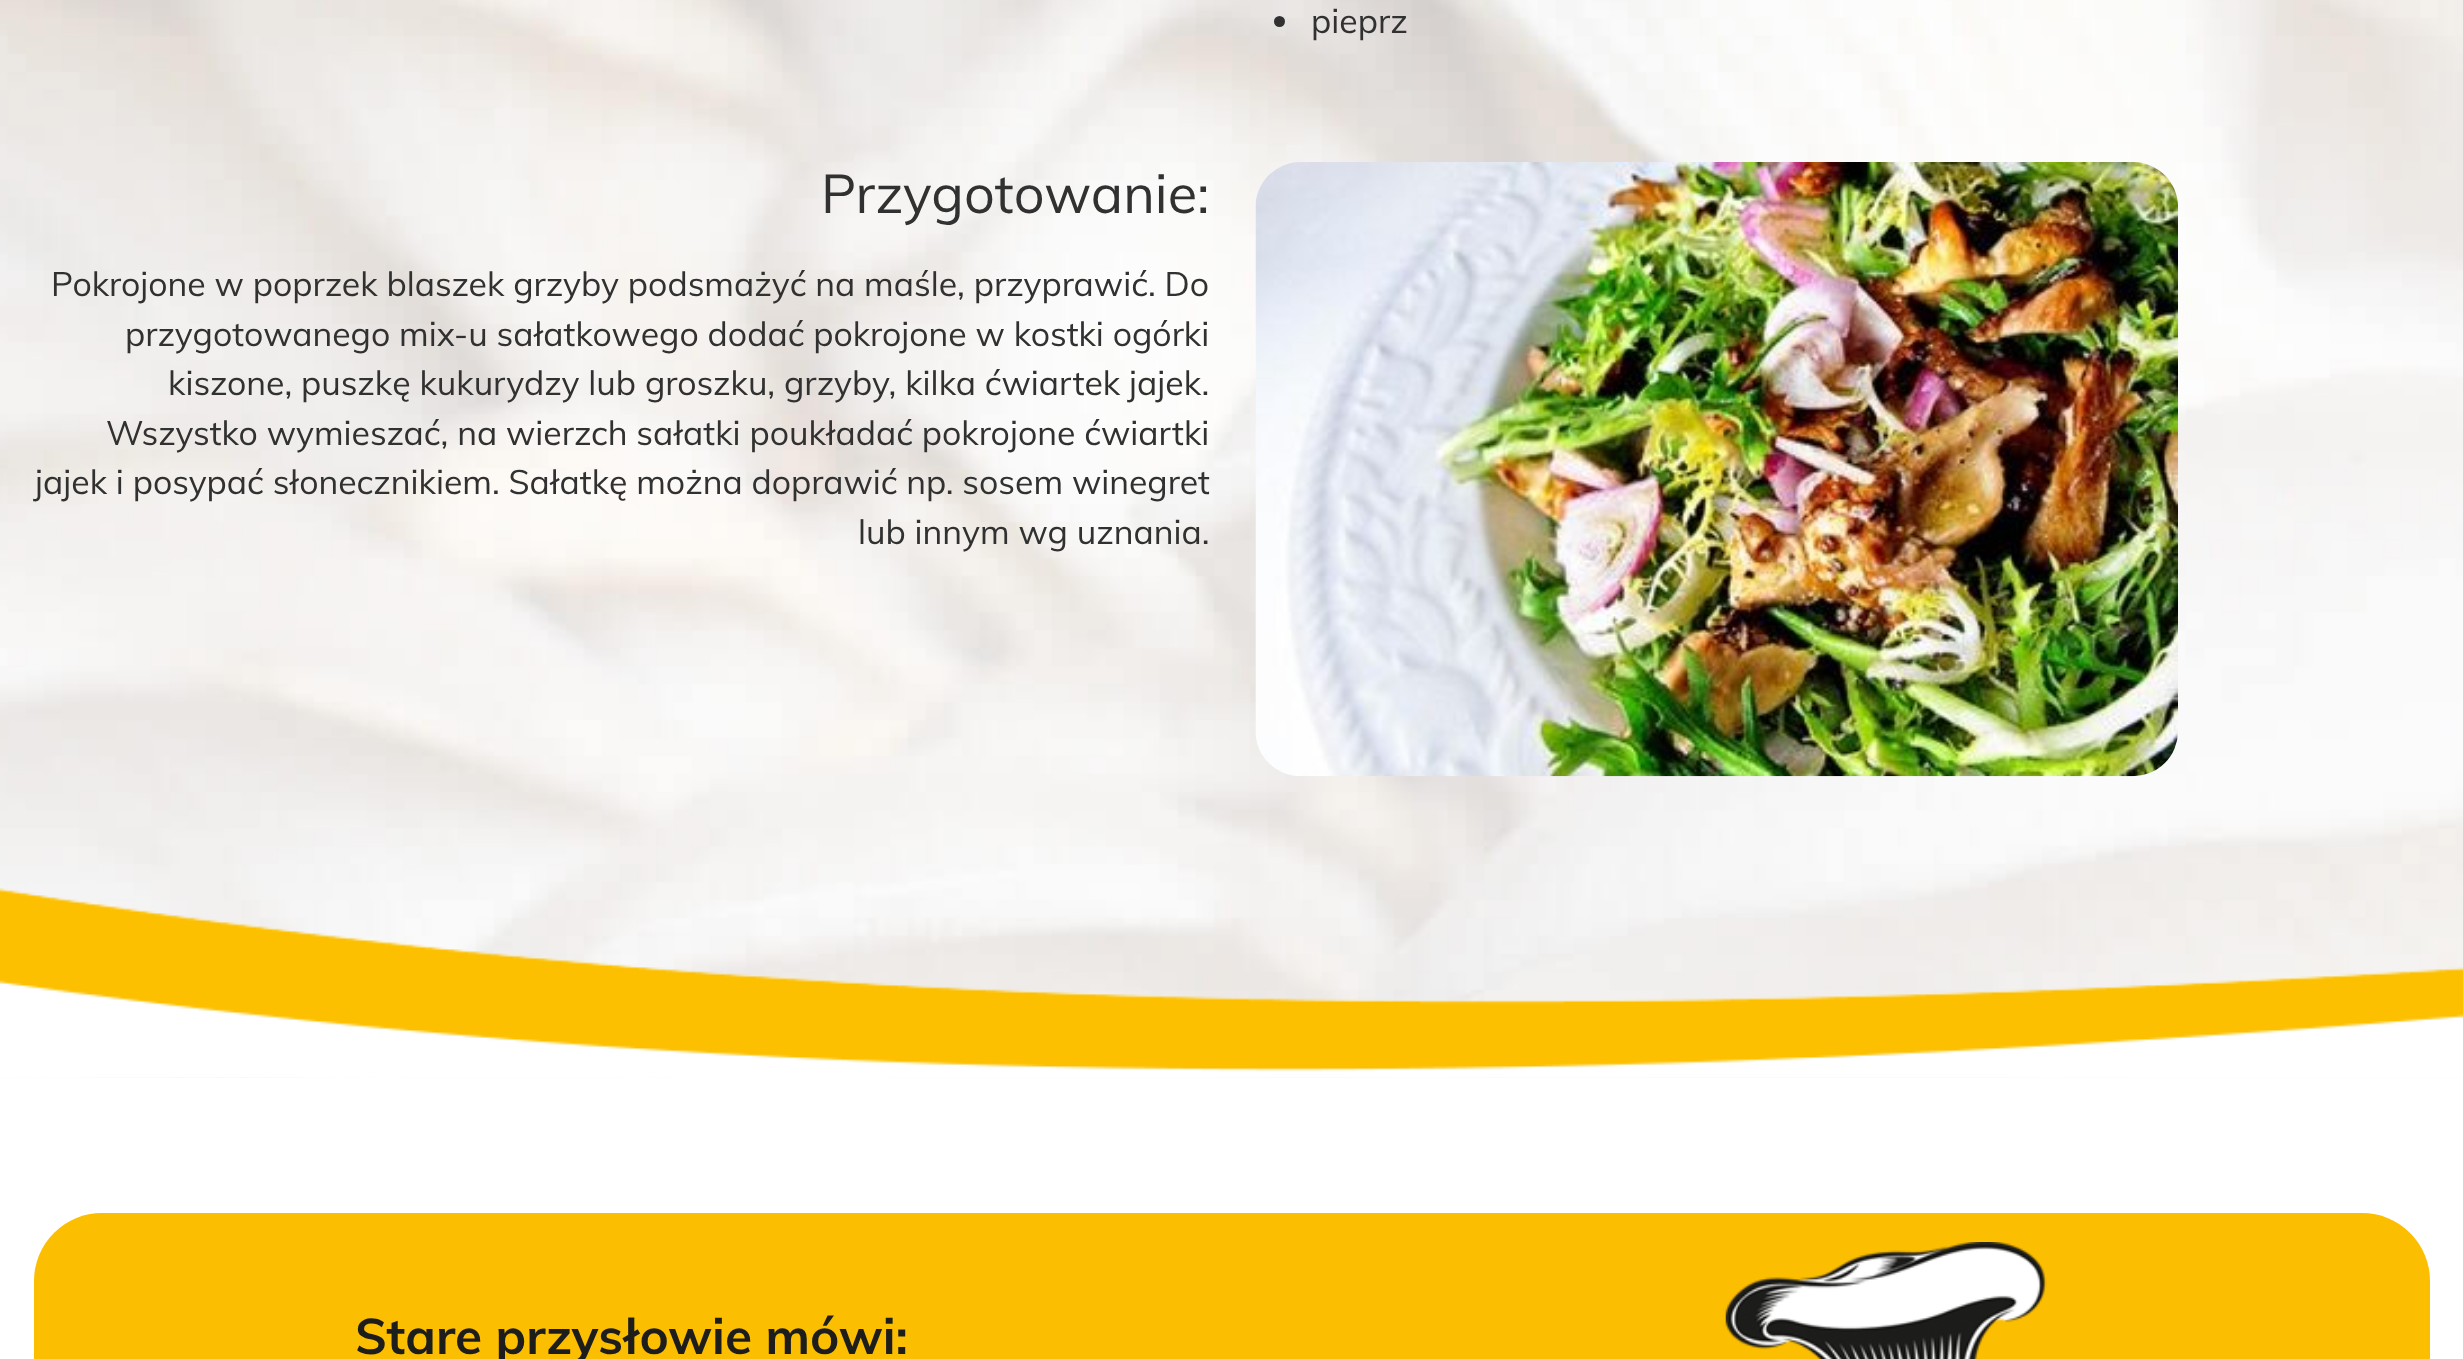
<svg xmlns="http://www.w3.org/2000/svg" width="2463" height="1359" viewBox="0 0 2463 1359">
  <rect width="100%" height="100%" fill="#fff"/>
  <image x="0" y="0" width="2463" height="1078" href="img/1.png"/>
  <circle cx="1279.5" cy="21.5" r="5.5" fill="#313131"/>
  <image x="1255" y="162" width="923" height="615" href="img/2.png"/>
  <image x="0" y="888" width="2463" height="190" href="img/3.png"/>
  <rect x="34" y="1213" width="2396" height="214" rx="68" fill="#fcbe00"/>
  <image x="1725" y="1242" width="322" height="117" href="img/4.png"/>
  <text x="1311" y="33" font-family="Muli" font-size="33.75" fill="#313131">pieprz</text>
  <text x="821" y="213" font-family="Muli" font-size="54" fill="#313131">Przygotowanie:</text>
  <g font-family="Muli" font-size="33.75" fill="#313131">
    <text x="51" y="296">Pokrojone w poprzek blaszek grzyby podsmażyć na maśle, przyprawić. Do</text>
    <text x="125" y="346">przygotowanego mix-u sałatkowego dodać pokrojone w kostki ogórki</text>
    <text x="168" y="395">kiszone, puszkę kukurydzy lub groszku, grzyby, kilka ćwiartek jajek.</text>
    <text x="106" y="445">Wszystko wymieszać, na wierzch sałatki poukładać pokrojone ćwiartki</text>
    <text x="35" y="494">jajek i posypać słonecznikiem. Sałatkę można doprawić np. sosem winegret</text>
    <text x="858" y="544">lub innym wg uznania.</text>
  </g>
  <text x="355" y="1354" font-family="Muli" font-size="49.5" font-weight="bold" fill="#1d1d1b">Stare przysłowie mówi:</text>
</svg>
